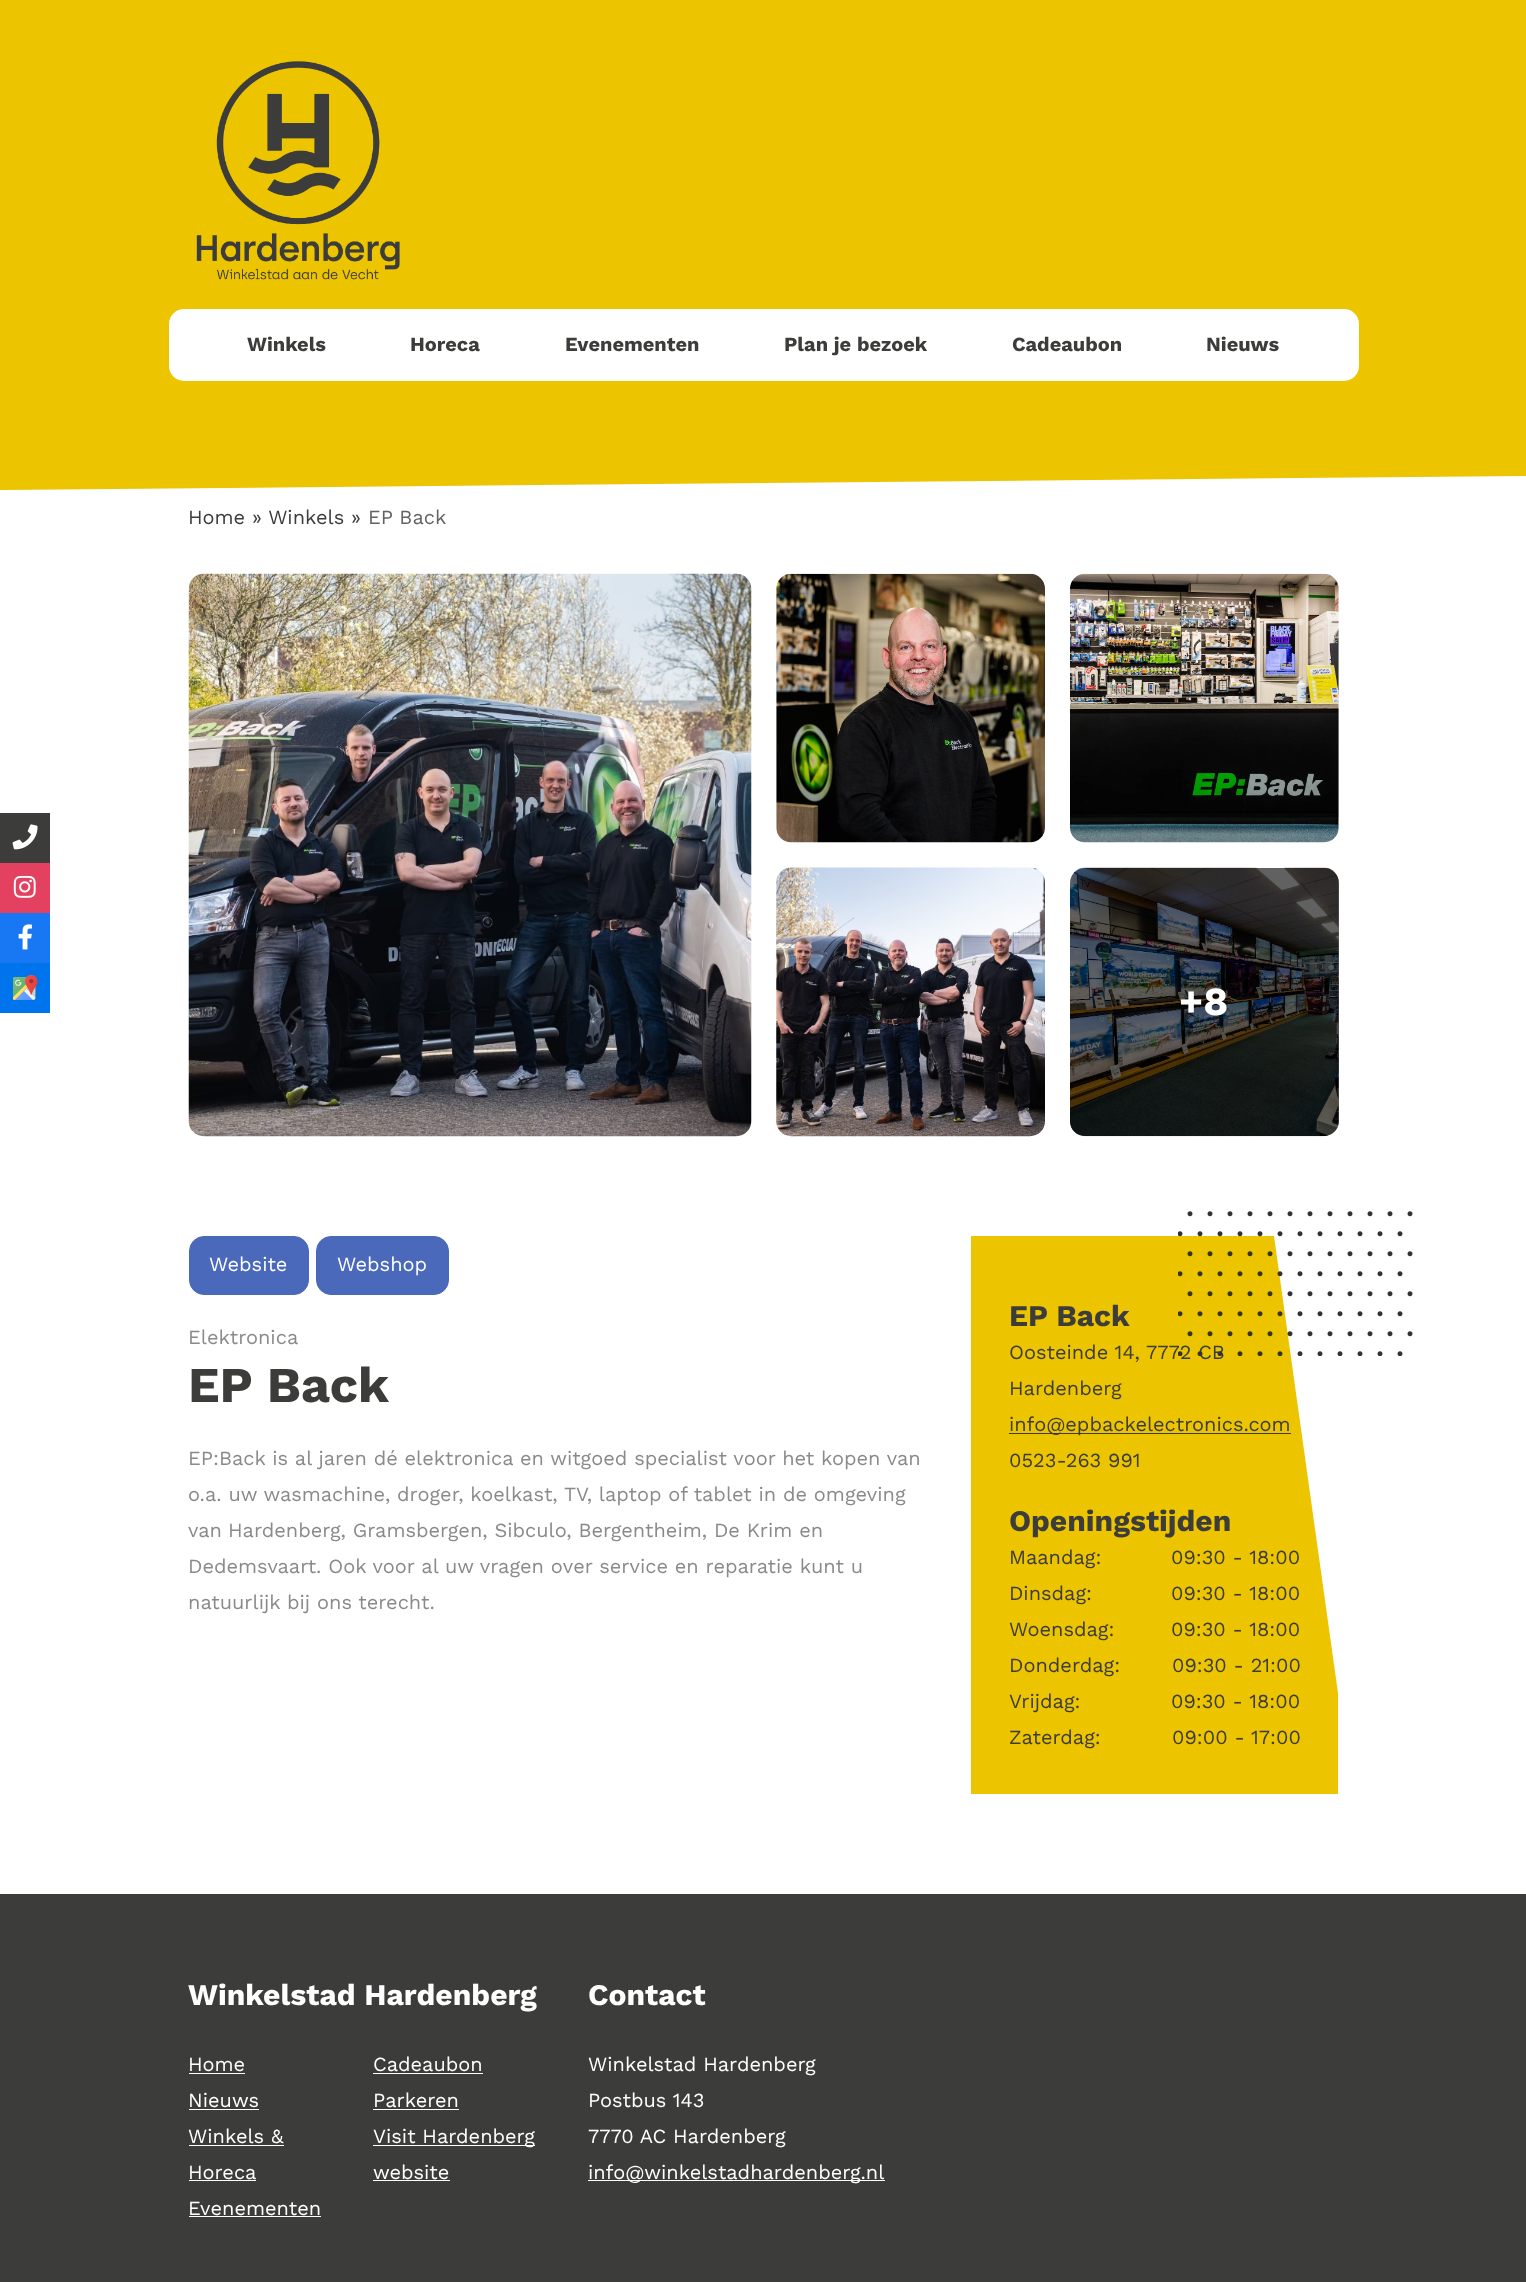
<svg xmlns="http://www.w3.org/2000/svg" width="1526" height="2282" viewBox="0 0 1526 2282">
  <rect width="100%" height="100%" fill="#fff"/>
  <path d="M0 0h1526v452H0z" fill="#ecc400"/>
  <image x="196" y="61" width="204" height="219" href="img/1.png"/>
  <rect x="169" y="309" width="1190" height="72" rx="15" fill="#fff"/>
  <path d="M0 452L1526 439V476L0 490Z" fill="#ecc400"/>
  <path d="M0 813h50v50H0z" fill="#3c3c3b"/>
  <image x="12" y="824" width="26" height="26" href="img/2.png"/>
  <path d="M0 863h50v50H0z" fill="#e4405f"/>
  <image x="13" y="875" width="23" height="23" href="img/3.png"/>
  <path d="M0 913h50v50H0z" fill="#1877f2"/>
  <image x="18" y="924" width="14" height="26" href="img/4.png"/>
  <path d="M0 963h50v50H0z" fill="#0074ec"/>
  <image x="13" y="975" width="25" height="25" href="img/5.png"/>
  <image x="188" y="573" width="564" height="564" href="img/6.png"/>
  <image x="776" y="573" width="269" height="270" href="img/7.png"/>
  <image x="1070" y="573" width="269" height="270" href="img/8.png"/>
  <image x="776" y="867" width="269" height="270" href="img/9.png"/>
  <image x="1070" y="867" width="269" height="270" href="img/10.png"/>
  <rect x="1070" y="868" width="269" height="268" rx="15" fill="#00000099"/>
  <rect x="189.5" y="1236.5" width="119" height="58" rx="14.5" fill="#4a69bb" stroke="#4a69bb"/>
  <rect x="316.5" y="1236.5" width="132" height="58" rx="14.5" fill="#4a69bb" stroke="#4a69bb"/>
  <path d="M971 1236h367v558H971z" fill="#ecc400"/>
  <path d="M1009 1433h282v1H1009z" fill="#3c3c3b"/>
  <path d="M0 1894h1526v388H0z" fill="#3c3c3b"/>
  <path d="M189 2073h56v1H189z" fill="#fff"/>
  <path d="M373 2073h110v1H373z" fill="#fff"/>
  <path d="M189 2109h70v1H189z" fill="#fff"/>
  <path d="M373 2109h86v1H373z" fill="#fff"/>
  <path d="M189 2145h95v1H189z" fill="#fff"/>
  <path d="M189 2180h67v1H189z" fill="#fff"/>
  <path d="M373 2145h162v1H373z" fill="#fff"/>
  <path d="M373 2180h77v1H373z" fill="#fff"/>
  <path d="M189 2216h132v1H189z" fill="#fff"/>
  <path d="M588 2180h297v1H588z" fill="#fff"/>
  <g font-family="Work Sans" font-size="20" font-weight="bold" fill="#3c3c3b">
    <text x="247" y="351">Winkels</text>
    <text x="410" y="351">Horeca</text>
    <text x="565" y="351">Evenementen</text>
    <text x="784" y="351">Plan je bezoek</text>
    <text x="1012" y="351">Cadeaubon</text>
    <text x="1206" y="351">Nieuws</text>
  </g>
  <text x="188" y="524" font-family="Work Sans" font-size="20" fill="#3c3c3b">Home » Winkels »</text>
  <text x="368" y="524" font-family="Work Sans" font-size="20" fill="#636362">EP Back</text>
  <text x="1179" y="1015" font-family="Work Sans" font-size="40" font-weight="bold" fill="#fff">+8</text>
  <g font-family="Work Sans" font-size="20" fill="#fff">
    <text x="209" y="1271">Website</text>
    <text x="337" y="1271">Webshop</text>
  </g>
  <text x="188" y="1344" font-family="Work Sans" font-size="20" fill="#8a8a89">Elektronica</text>
  <text x="188" y="1402" font-family="Work Sans" font-size="50" font-weight="bold" fill="#3c3c3b">EP Back</text>
  <g font-family="Work Sans" font-size="20" fill="#8a8a89">
    <text x="188" y="1465">EP:Back is al jaren dé elektronica en witgoed specialist voor het kopen van</text>
    <text x="188" y="1501">o.a. uw wasmachine, droger, koelkast, TV, laptop of tablet in de omgeving</text>
    <text x="188" y="1537">van</text>
    <text x="228" y="1537">Hardenberg, Gramsbergen, Sibculo, Bergentheim, De Krim en</text>
    <text x="188" y="1573">Dedemsvaart. Ook voor al uw vragen over service en reparatie kunt u</text>
    <text x="188" y="1609">natuurlijk bij ons terecht.</text>
  </g>
  <text x="1009" y="1326" font-family="Work Sans" font-size="30" font-weight="bold" fill="#3c3c3b">EP Back</text>
  <g font-family="Work Sans" font-size="20" fill="#3c3c3b">
    <text x="1009" y="1359">Oosteinde 14,</text>
    <text x="1146" y="1359">7772 CB</text>
    <text x="1009" y="1395">Hardenberg</text>
    <text x="1009" y="1431">info@epbackelectronics.com</text>
    <text x="1009" y="1467">0523-263 991</text>
  </g>
  <text x="1009" y="1531" font-family="Work Sans" font-size="30" font-weight="bold" fill="#3c3c3b">Openingstijden</text>
  <g font-family="Work Sans" font-size="20" fill="#3c3c3b">
    <text x="1009" y="1564">Maandag:</text>
    <text x="1171" y="1564">09:30 - 18:00</text>
    <text x="1009" y="1600">Dinsdag:</text>
    <text x="1171" y="1600">09:30 - 18:00</text>
    <text x="1009" y="1636">Woensdag:</text>
    <text x="1171" y="1636">09:30 - 18:00</text>
    <text x="1009" y="1672">Donderdag:</text>
    <text x="1172" y="1672">09:30 - 21:00</text>
    <text x="1009" y="1708">Vrijdag:</text>
    <text x="1171" y="1708">09:30 - 18:00</text>
    <text x="1009" y="1744">Zaterdag:</text>
    <text x="1172" y="1744">09:00 - 17:00</text>
  </g>
  <path d="M1274 1236H1399L1477 1793H1352Z" fill="#fff"/>
  <image x="1178" y="1211" width="235" height="145" href="img/11.png"/>
  <text x="188" y="2005" font-family="Work Sans" font-size="30" font-weight="bold" fill="#fff">Winkelstad Hardenberg</text>
  <g font-family="Work Sans" font-size="20" fill="#fff">
    <text x="188" y="2071">Home</text>
    <text x="373" y="2071">Cadeaubon</text>
    <text x="188" y="2107">Nieuws</text>
    <text x="373" y="2107">Parkeren</text>
    <text x="188" y="2143">Winkels &amp;</text>
    <text x="188" y="2179">Horeca</text>
    <text x="373" y="2143">Visit Hardenberg</text>
    <text x="373" y="2179">website</text>
    <text x="188" y="2215">Evenementen</text>
  </g>
  <text x="588" y="2005" font-family="Work Sans" font-size="30" font-weight="bold" fill="#fff">Contact</text>
  <g font-family="Work Sans" font-size="20" fill="#fff">
    <text x="588" y="2071">Winkelstad Hardenberg</text>
    <text x="588" y="2107">Postbus 143</text>
    <text x="588" y="2143">7770 AC Hardenberg</text>
    <text x="588" y="2179">info@winkelstadhardenberg.nl</text>
  </g>
</svg>
